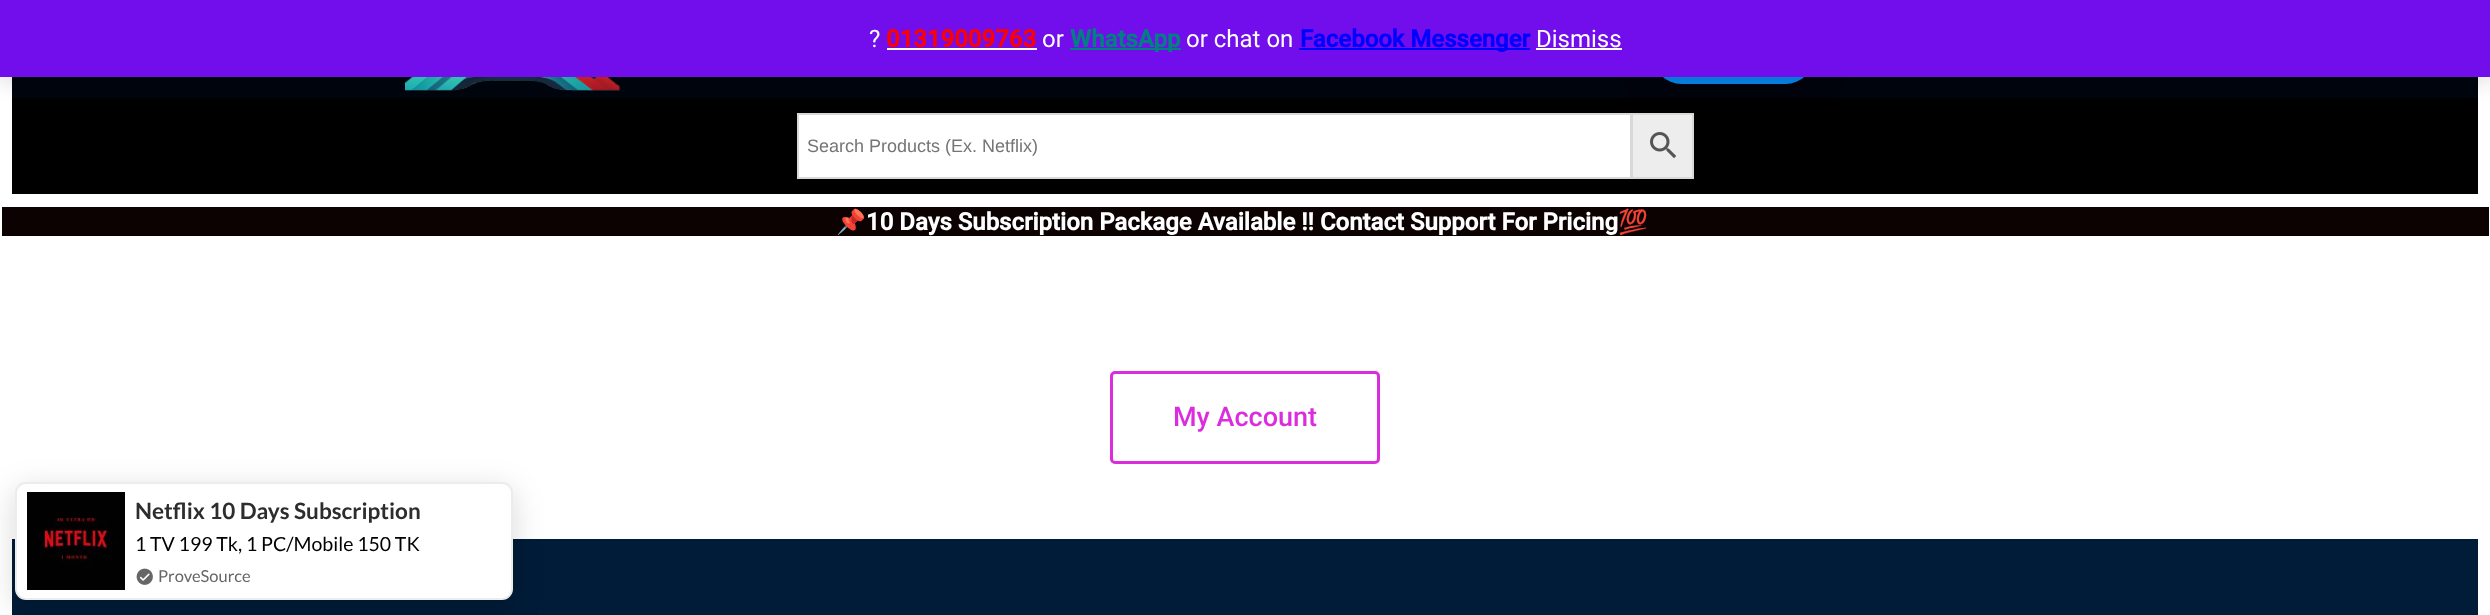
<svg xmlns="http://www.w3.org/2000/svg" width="2490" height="615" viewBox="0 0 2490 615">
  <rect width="100%" height="100%" fill="#fff"/>
  <path d="M12 77h2466v21H12z" fill="#00050d"/>
  <image x="405" y="77" width="215" height="14" href="img/1.png"/>
  <rect x="1653" y="27" width="161" height="57" rx="28.5" fill="#0000001f" filter="blur(20px)"/>
  <rect x="1653" y="27" width="161" height="57" rx="28.5" fill="#0688ed"/>
  <path d="M12 98h2466v96H12z" fill="#000"/>
  <path d="M1632 114h61v64H1632z" fill="#ededed" stroke="#d8d8d8" stroke-width="2"/>
  <path d="M798 114h833v64H798z" fill="#fff" stroke="#d8d8d8" stroke-width="2"/>
  <path d="M0 2h2490v76H0z" fill="#00000033" filter="blur(12px)"/>
  <path d="M0 0h2490v77H0z" fill="#720eec"/>
  <path d="M887 48h150v2H887z" fill="#fcfbfe"/>
  <path d="M1070 48h111v2H1070z" fill="#008080"/>
  <path d="M1299 48h231v2H1299z" fill="#00f"/>
  <path d="M1536 48h86v2H1536z" fill="#fcfbfe"/>
  <image x="1650" y="132" width="27" height="27" href="img/2.png"/>
  <path d="M2 207h2487v29H2z" fill="#0c0202"/>
  <rect x="1111.5" y="372.5" width="267" height="90" rx="3.5" fill="none" stroke="#da2edd" stroke-width="3"/>
  <path d="M12 539h2466v76H12z" fill="#001c38"/>
  <rect x="15" y="489" width="498" height="119" rx="11" fill="#00000026" filter="blur(15px)"/>
  <rect x="16" y="483" width="496" height="116" rx="10" fill="#fff" stroke="#ececec" stroke-width="2"/>
  <image x="27" y="492" width="98" height="98" href="img/3.png"/>
  <image x="136" y="568" width="17" height="17" href="img/4.png"/>
  <text x="869" y="47" font-family="Roboto" font-size="24" fill="#fff">?</text>
  <text x="886" y="47" font-family="Roboto" font-size="24" font-weight="bold" fill="#f00">01319009763</text>
  <text x="1042" y="47" font-family="Roboto" font-size="24" fill="#fff">or</text>
  <text x="1070" y="47" font-family="Roboto" font-size="24" font-weight="bold" fill="#008080">WhatsApp</text>
  <text x="1186" y="47" font-family="Roboto" font-size="24" fill="#fff">or chat on</text>
  <text x="1300" y="47" font-family="Roboto" font-size="24" font-weight="bold" fill="#00f">Facebook Messenger</text>
  <text x="1536" y="47" font-family="Roboto" font-size="24" fill="#fff">Dismiss</text>
  <text x="807" y="152" font-family="Liberation Sans" font-size="18" fill="#757575">Search Products (Ex. Netflix)</text>
  <text x="836" y="230" font-family="Noto Color Emoji" font-size="24" font-weight="bold" fill="#fff">📌</text>
  <text x="866" y="230" font-family="Roboto" font-size="24" font-weight="bold" fill="#fff">10 Days Subscription Package Available !! Contact Support For Pricing</text>
  <text x="1618" y="230" font-family="Noto Color Emoji" font-size="24" font-weight="bold" fill="#fff">💯</text>
  <text x="1173" y="426" font-family="Roboto" font-size="27" font-weight="500" fill="#da2edd">My Account</text>
  <text x="135" y="519" font-family="Lato" font-size="22.5" font-weight="bold" fill="#2d2d2d">Netflix 10 Days Subscription</text>
  <text x="135" y="551" font-family="Lato" font-size="19.5" fill="#000">1 TV 199 Tk, 1 PC/Mobile 150 TK</text>
  <text x="158" y="582" font-family="Lato" font-size="16.5" fill="#666">ProveSource</text>
</svg>
